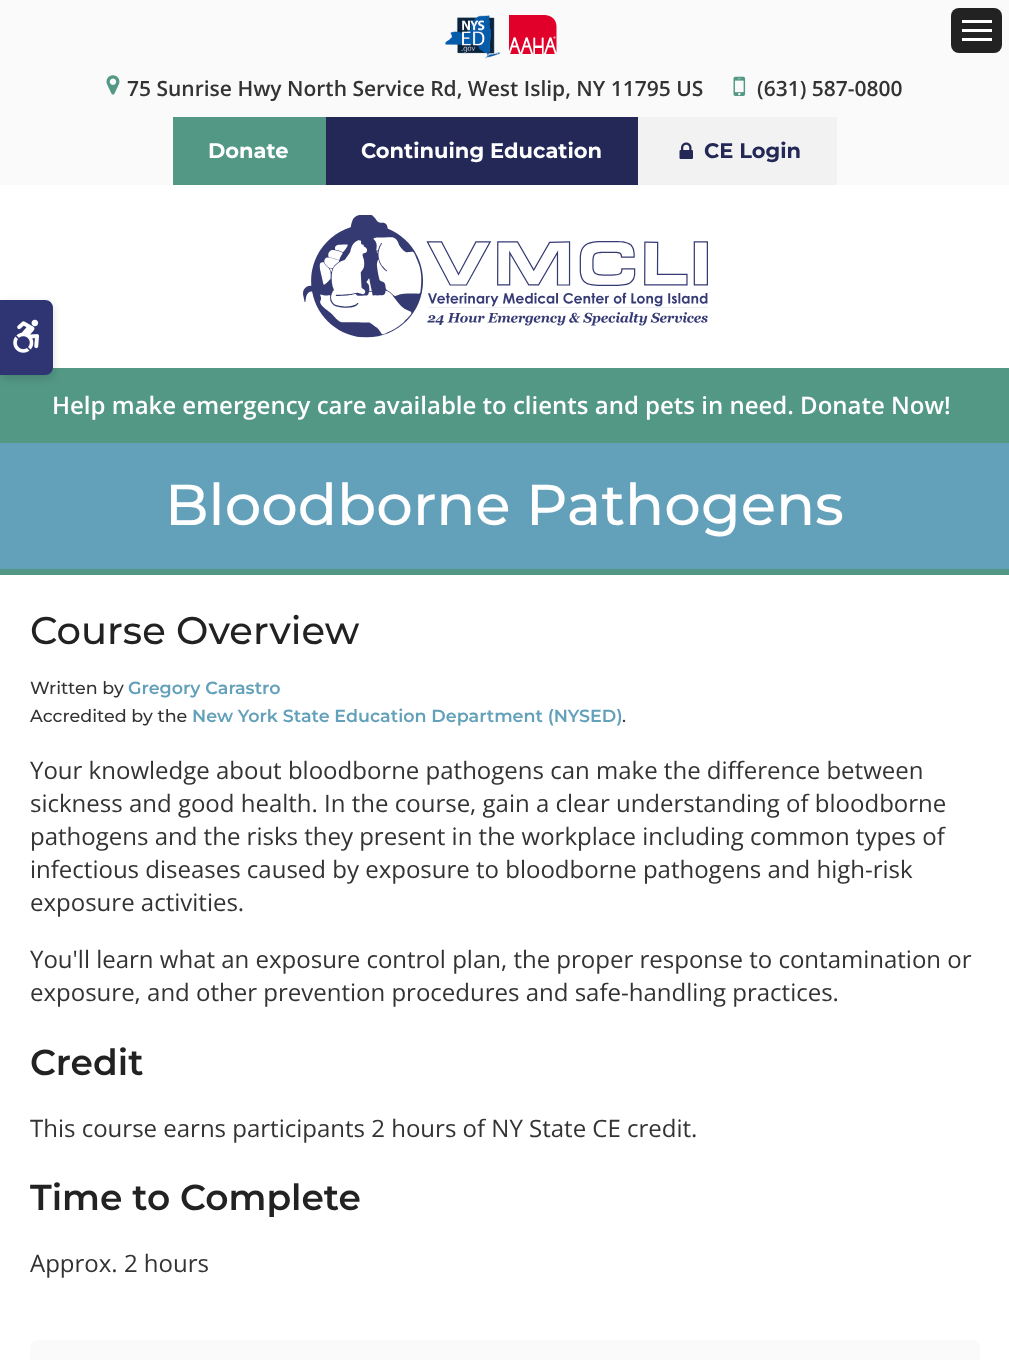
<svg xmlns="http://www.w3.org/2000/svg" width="1009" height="1360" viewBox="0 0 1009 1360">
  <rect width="100%" height="100%" fill="#539785"/>
  <path d="M0 0h1009v185H0z" fill="#fafafa"/>
  <rect x="951" y="8" width="51" height="45" rx="8" fill="#222"/>
  <path d="M962 20h30v3H962z" fill="#fff"/>
  <path d="M962 29h30v3H962z" fill="#fff"/>
  <path d="M962 38h30v3H962z" fill="#fff"/>
  <path d="M0 185h1009v183H0z" fill="#fff"/>
  <image x="445" y="15" width="56" height="44" href="img/1.png"/>
  <image x="509" y="15" width="48" height="39" href="img/2.png"/>
  <image x="106" y="75" width="14" height="20" href="img/3.png"/>
  <image x="733" y="76" width="13" height="20" href="img/4.png"/>
  <path d="M173 117h153v68H173z" fill="#539785"/>
  <path d="M326 117h312v68H326z" fill="#232857"/>
  <path d="M638 117h199v68H638z" fill="#f2f2f2"/>
  <image x="679" y="142" width="14" height="17" href="img/5.png"/>
  <image x="303" y="215" width="405" height="123" href="img/6.png"/>
  <rect y="303" width="53" height="75" rx="8" fill="#00000026" filter="blur(4px)"/>
  <path d="M0 300H45C49.5 300 53 303.5 53 308V367C53 371.5 49.5 375 45 375H0Z" fill="#2e3572"/>
  <image x="13" y="319" width="26" height="34" href="img/7.png"/>
  <path d="M0 443h1009v126H0z" fill="#63a0b9"/>
  <path d="M0 575h1009v785H0z" fill="#fff"/>
  <rect x="30" y="1340" width="950" height="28" rx="8" fill="#fafafa"/>
  <g font-family="Open Sans" font-size="21" font-weight="600" fill="#333">
    <text x="127" y="96">75 Sunrise Hwy North Service Rd, West Islip, NY 11795 US</text>
    <text x="757" y="96">(631) 587-0800</text>
  </g>
  <g font-family="Montserrat" font-size="21" font-weight="bold" fill="#fff">
    <text x="208" y="158">Donate</text>
    <text x="361" y="158">Continuing Education</text>
  </g>
  <text x="704" y="158" font-family="Montserrat" font-size="21" font-weight="bold" fill="#232857">CE Login</text>
  <text x="52" y="414" font-family="Open Sans" font-size="24" font-weight="600" fill="#fff">Help make emergency care available to clients and pets in need. Donate Now!</text>
  <text x="165" y="525" font-family="Montserrat" font-size="57.6" font-weight="500" fill="#fff">Bloodborne Pathogens</text>
  <text x="30" y="644" font-family="Montserrat" font-size="38.5" font-weight="500" fill="#222">Course Overview</text>
  <text x="30" y="694" font-family="Montserrat" font-size="17.5" font-weight="500" fill="#333">Written by</text>
  <text x="128" y="694" font-family="Montserrat" font-size="17.5" font-weight="600" fill="#63a0b9">Gregory Carastro</text>
  <text x="30" y="722" font-family="Montserrat" font-size="17.5" font-weight="500" fill="#333">Accredited by the</text>
  <text x="192" y="722" font-family="Montserrat" font-size="17.5" font-weight="600" fill="#63a0b9">New York State Education Department (NYSED)</text>
  <text x="622" y="722" font-family="Montserrat" font-size="17.5" font-weight="500" fill="#333">.</text>
  <g font-family="Open Sans" font-size="24" fill="#333">
    <text x="30" y="779">Your knowledge about bloodborne pathogens can make the difference between</text>
    <text x="30" y="812">sickness and good health. In the course, gain a clear understanding of bloodborne</text>
    <text x="30" y="845">pathogens and the risks they present in the workplace including common types of</text>
    <text x="30" y="878">infectious diseases caused by exposure to bloodborne pathogens and high-risk</text>
    <text x="30" y="911">exposure activities.</text>
    <text x="30" y="968">You'll learn what an exposure control plan, the proper response to contamination or</text>
    <text x="30" y="1001">exposure, and other prevention procedures and safe-handling practices.</text>
  </g>
  <text x="30" y="1075" font-family="Montserrat" font-size="36" font-weight="600" fill="#222">Credit</text>
  <text x="30" y="1137" font-family="Open Sans" font-size="24" fill="#333">This course earns participants 2 hours of NY State CE credit.</text>
  <text x="30" y="1210" font-family="Montserrat" font-size="36" font-weight="600" fill="#222">Time to Complete</text>
  <text x="30" y="1272" font-family="Open Sans" font-size="24" fill="#333">Approx. 2 hours</text>
</svg>
